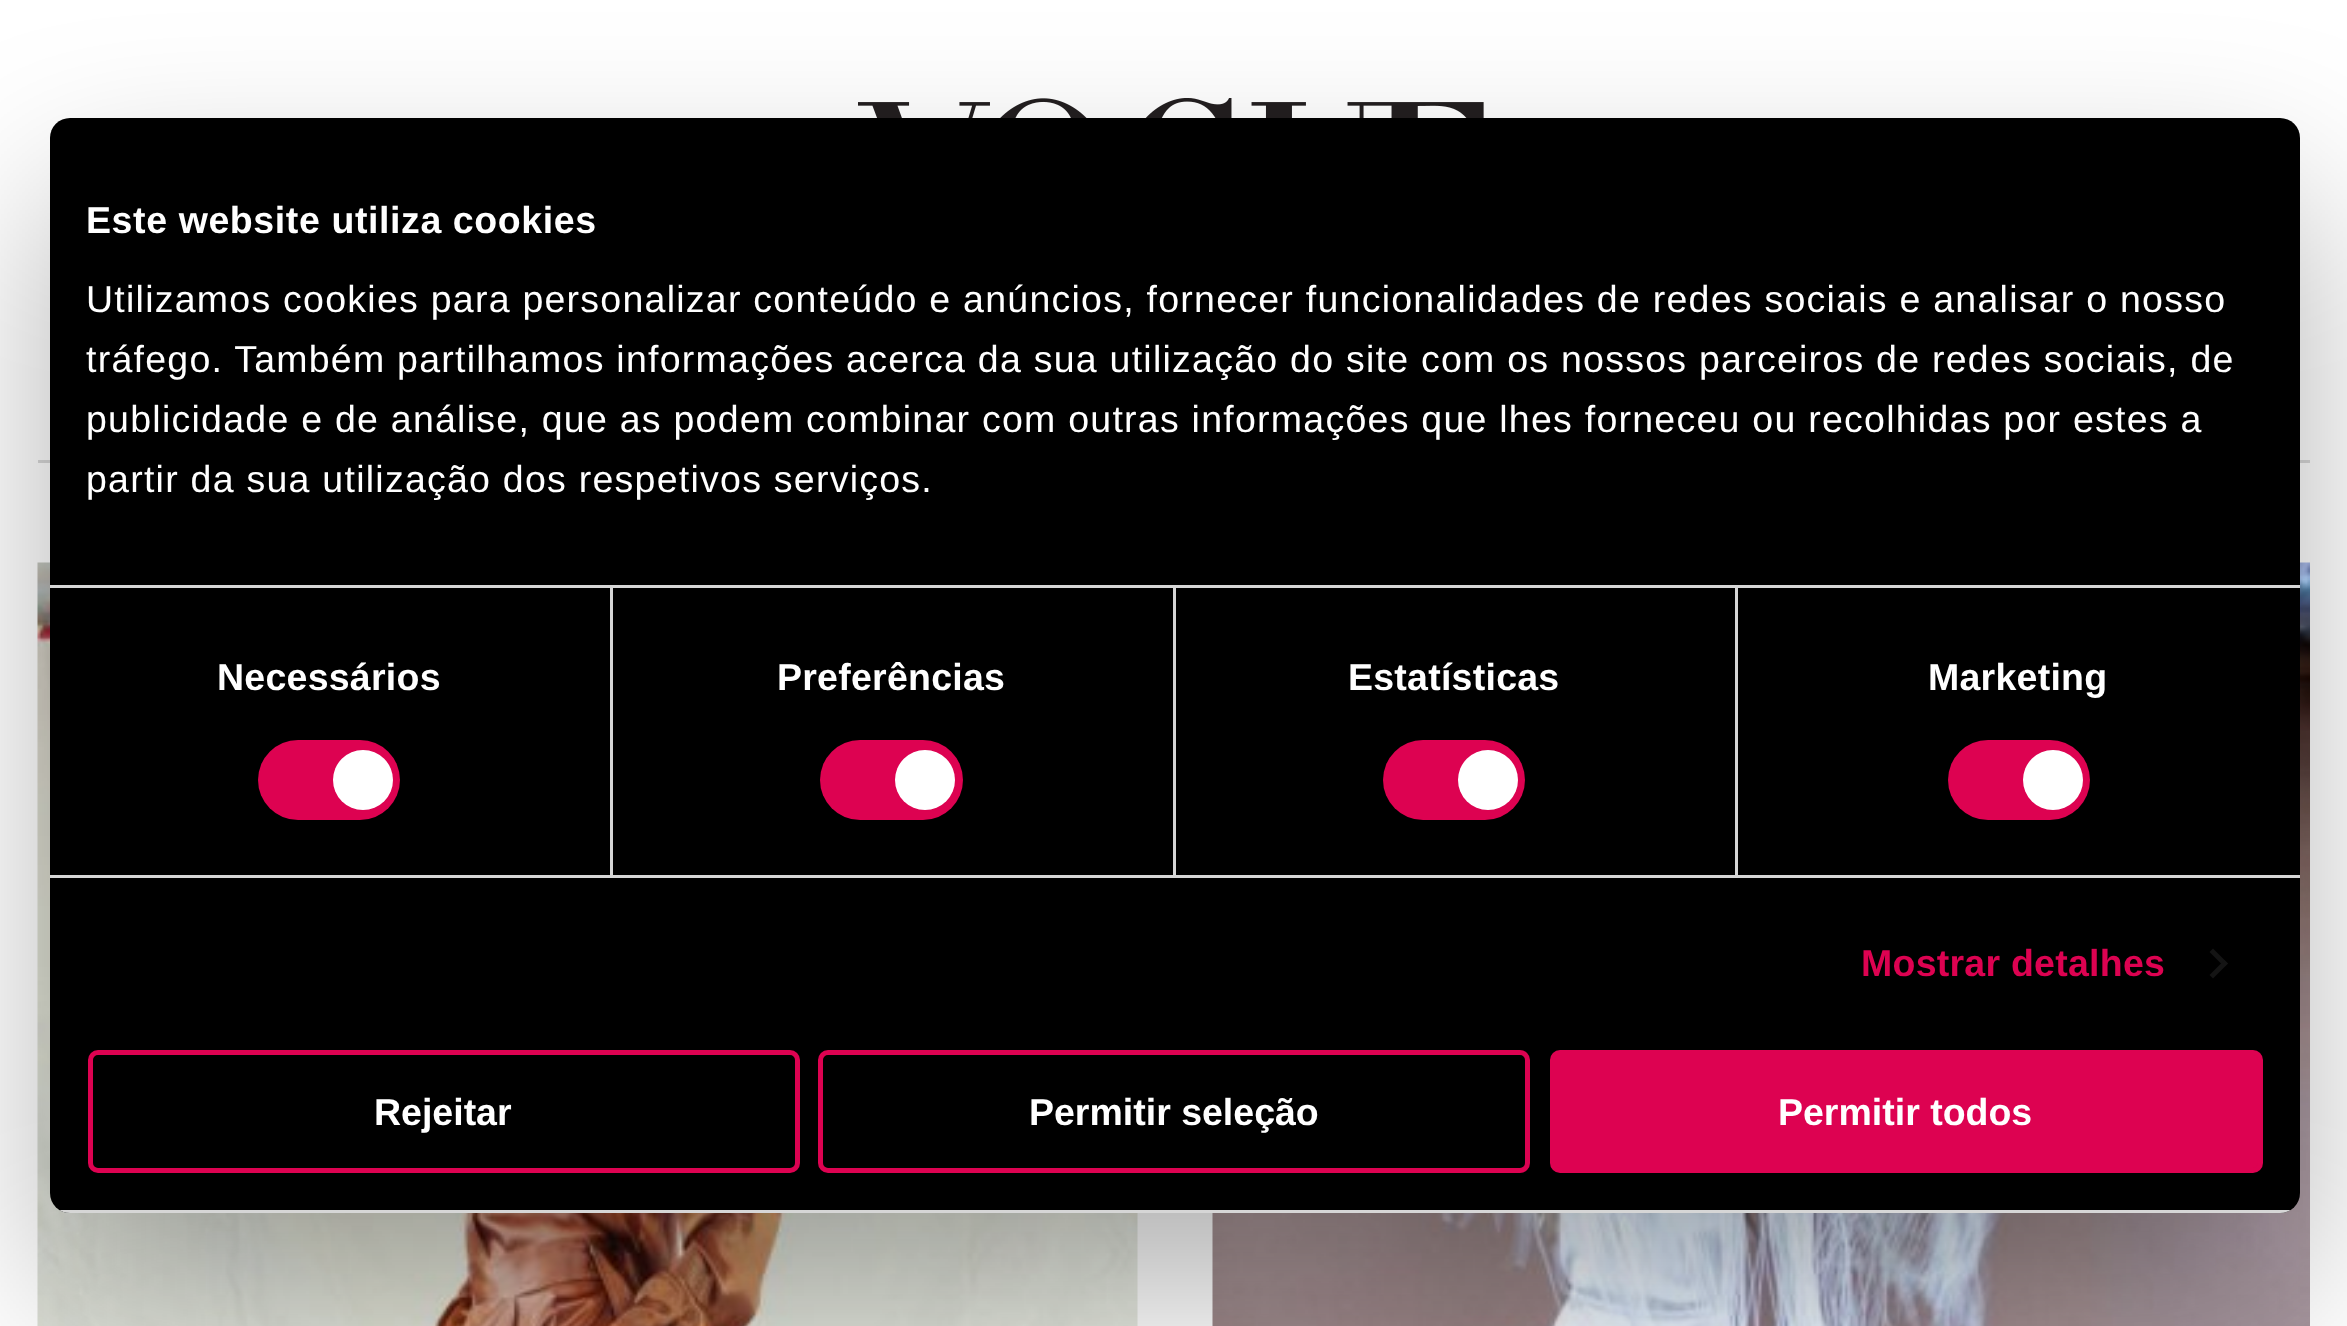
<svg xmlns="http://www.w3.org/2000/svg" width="2347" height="1326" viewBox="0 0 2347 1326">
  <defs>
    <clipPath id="clip1"><rect x="50" y="118" width="2250" height="1095" rx="20"/></clipPath>
  </defs>
  <rect width="100%" height="100%" fill="#fff"/>
  <image x="858" y="98" width="626" height="20" href="img/1.png"/>
  <path d="M38 460h2272v3H38z" fill="#d9d9d9"/>
  <image x="37" y="562" width="1101" height="764" href="img/2.png"/>
  <image x="1212" y="562" width="1098" height="764" href="img/3.png"/>
  <rect x="50" y="198" width="2250" height="1095" rx="20" fill="#0000004d" filter="blur(85px)"/>
  <rect x="50" y="118" width="2250" height="1095" rx="20" fill="#000"/>
  <path d="M50 585h2250v3H50z" fill="#d6d6d6"/>
  <path d="M50 875h2250v3H50z" fill="#d6d6d6"/>
  <path d="M610 588h3v287H610z" fill="#d6d6d6"/>
  <rect x="258" y="740" width="142" height="80" rx="40" fill="#dd0251"/>
  <circle cx="363" cy="780" r="30" fill="#fff"/>
  <path d="M1173 588h3v287H1173z" fill="#d6d6d6"/>
  <rect x="820" y="740" width="143" height="80" rx="40" fill="#dd0251"/>
  <circle cx="925" cy="780" r="30" fill="#fff"/>
  <path d="M1735 588h3v287H1735z" fill="#d6d6d6"/>
  <rect x="1383" y="740" width="142" height="80" rx="40" fill="#dd0251"/>
  <circle cx="1488" cy="780" r="30" fill="#fff"/>
  <rect x="1948" y="740" width="142" height="80" rx="40" fill="#dd0251"/>
  <circle cx="2053" cy="780" r="30" fill="#fff"/>
  <path d="M2213 948.5L2228 963.5L2224.5 967L2209.5 952Z" fill="#141414"/>
  <path d="M2224.5 960L2228 963.5L2213 978.5L2209.5 975Z" fill="#141414"/>
  <g clip-path="url(#clip1)">
    <path d="M59 1210h2232v3H59z" fill="#d6d6d6"/>
  </g>
  <rect x="90.5" y="1052.5" width="707" height="118" rx="7.5" fill="none" stroke="#dd0251" stroke-width="5"/>
  <rect x="820.5" y="1052.5" width="707" height="118" rx="7.5" fill="none" stroke="#dd0251" stroke-width="5"/>
  <rect x="1552.5" y="1052.5" width="708" height="118" rx="7.5" fill="#dd0251" stroke="#dd0251" stroke-width="5"/>
  <text x="86" y="233" font-family="Liberation Sans" font-size="37.5" font-weight="bold" letter-spacing="0.6" fill="#fff">Este website utiliza cookies</text>
  <g font-family="Liberation Sans" font-size="37.5" letter-spacing="1.25" fill="#fff">
    <text x="86" y="312">Utilizamos cookies para personalizar conteúdo e anúncios, fornecer funcionalidades de redes sociais e analisar o nosso</text>
    <text x="86" y="372">tráfego. Também partilhamos informações acerca da sua utilização do site com os nossos parceiros de redes sociais, de</text>
    <text x="86" y="432">publicidade e de análise, que as podem combinar com outras informações que lhes forneceu ou recolhidas por estes a</text>
    <text x="86" y="492">partir da sua utilização dos respetivos serviços.</text>
  </g>
  <g font-family="Liberation Sans" font-size="37.5" font-weight="bold" letter-spacing="0.25" fill="#fff">
    <text x="217" y="690">Necessários</text>
    <text x="777" y="690">Preferências</text>
    <text x="1348" y="690">Estatísticas</text>
    <text x="1928" y="690">Marketing</text>
  </g>
  <text x="1861" y="976" font-family="Liberation Sans" font-size="37.5" font-weight="bold" letter-spacing="0.25" fill="#dd0251">Mostrar detalhes</text>
  <g font-family="Liberation Sans" font-size="37.5" font-weight="bold" fill="#fff">
    <text x="374" y="1125">Rejeitar</text>
    <text x="1029" y="1125">Permitir seleção</text>
    <text x="1778" y="1125">Permitir todos</text>
  </g>
</svg>
